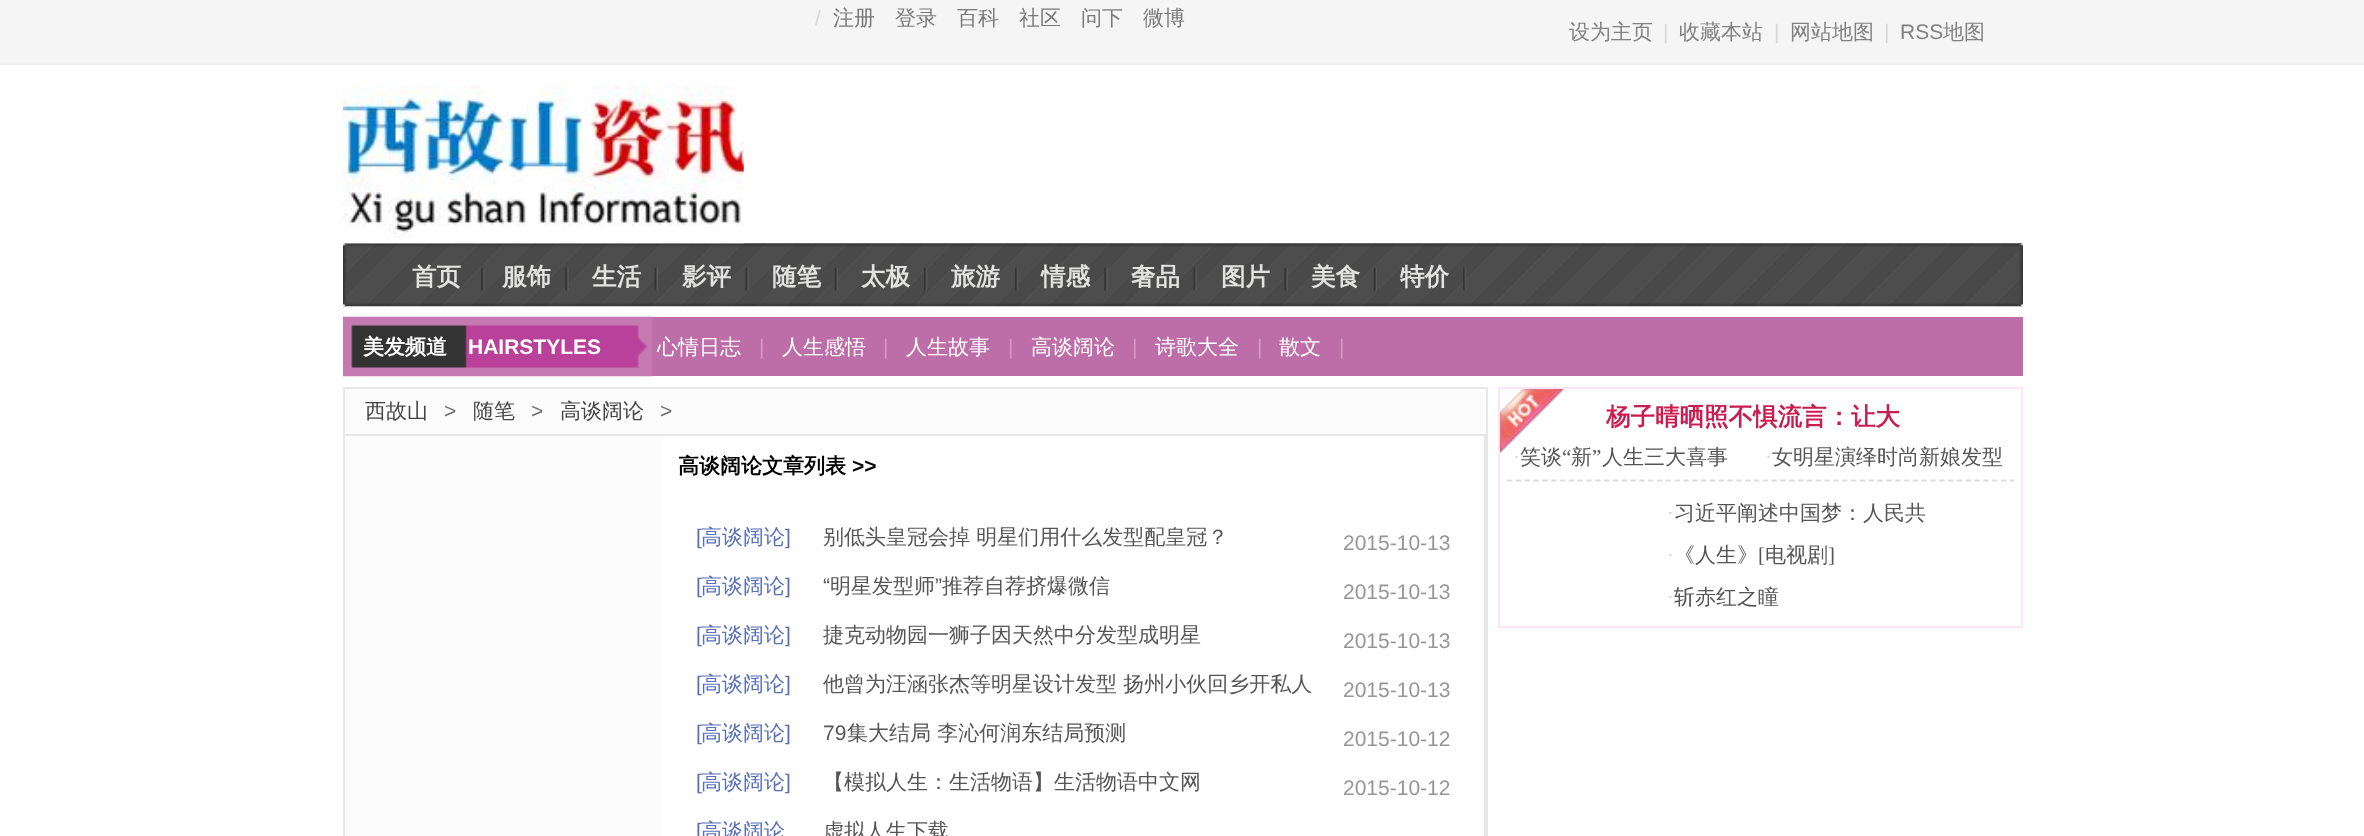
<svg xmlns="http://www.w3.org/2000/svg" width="2364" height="836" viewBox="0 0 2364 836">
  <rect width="100%" height="100%" fill="#fff"/>
  <path d="M0 0h2364v63H0z" fill="#f5f5f5"/>
  <path d="M0 63h2364v2H0z" fill="#eee"/>
  <image x="343" y="243" width="1680" height="64" href="img/2.png"/>
  <image x="343" y="243" width="4" height="64" href="img/3.png"/>
  <image x="343" y="85" width="401" height="159" href="img/1.png"/>
  <image x="481" y="267" width="4" height="24" href="img/4.png"/>
  <image x="565" y="267" width="4" height="24" href="img/5.png"/>
  <image x="654" y="267" width="4" height="24" href="img/6.png"/>
  <image x="745" y="267" width="4" height="24" href="img/7.png"/>
  <image x="834" y="267" width="5" height="24" href="img/8.png"/>
  <image x="924" y="267" width="4" height="24" href="img/9.png"/>
  <image x="1015" y="267" width="4" height="24" href="img/10.png"/>
  <image x="1104" y="267" width="4" height="24" href="img/11.png"/>
  <image x="1193" y="267" width="4" height="24" href="img/12.png"/>
  <image x="1284" y="267" width="4" height="24" href="img/6.png"/>
  <image x="1373" y="267" width="4" height="24" href="img/13.png"/>
  <image x="1463" y="267" width="4" height="24" href="img/14.png"/>
  <image x="2019" y="243" width="4" height="64" href="img/15.png"/>
  <path d="M651 317h1372v59H651z" fill="#bd6da7"/>
  <image x="343" y="316" width="310" height="61" href="img/16.png"/>
  <path d="M345 389h1141v447H345z" fill="#fcfcfc"/>
  <path d="M1486 387h2v449H1486z" fill="#e7e7e7"/>
  <path d="M343 387h2v449H343z" fill="#e7e7e7"/>
  <path d="M345 387h1141v2H345z" fill="#e7e7e7"/>
  <path d="M345 434h1141v2H345z" fill="#e7e7e7"/>
  <path d="M662 436h822v400H662z" fill="#fff"/>
  <path d="M1484 436h2v400H1484z" fill="#e7e7e7"/>
  <image x="1500" y="389" width="65" height="65" href="img/17.png"/>
  <path d="M1499 388h523v239H1499z" fill="none" stroke="#ffe3f6" stroke-width="2"/>
  <path d="M1507 480.5H2014" fill="none" stroke="#dcdcdc" stroke-width="1.8" stroke-dasharray="5.25 3.57"/>
  <text x="815" y="25" font-family="Liberation Sans" font-size="21" fill="#d9d9d9">/</text>
  <g font-family="WenQuanYi Zen Hei" font-size="21" font-weight="500" fill="#797979">
    <text x="833" y="25">注册</text>
    <text x="895" y="25">登录</text>
    <text x="957" y="25">百科</text>
    <text x="1019" y="25">社区</text>
    <text x="1081" y="25">问下</text>
    <text x="1143" y="25">微博</text>
  </g>
  <text x="1569" y="39" font-family="WenQuanYi Zen Hei" font-size="21" font-weight="500" fill="#818181">设为主页</text>
  <text x="1663" y="39" font-family="Liberation Sans" font-size="21" fill="#d9d9d9">|</text>
  <text x="1679" y="39" font-family="WenQuanYi Zen Hei" font-size="21" font-weight="500" fill="#818181">收藏本站</text>
  <text x="1774" y="39" font-family="Liberation Sans" font-size="21" fill="#d9d9d9">|</text>
  <text x="1790" y="39" font-family="WenQuanYi Zen Hei" font-size="21" font-weight="500" fill="#818181">网站地图</text>
  <text x="1884" y="39" font-family="Liberation Sans" font-size="21" fill="#d9d9d9">|</text>
  <text x="1900" y="39" font-family="Liberation Sans" font-size="21" fill="#818181">RSS</text>
  <text x="1943" y="39" font-family="WenQuanYi Zen Hei" font-size="21" font-weight="500" fill="#818181">地图</text>
  <g font-family="WenQuanYi Zen Hei" font-size="24.5" font-weight="bold" fill="#e2e2e1">
    <text x="412" y="285">首页</text>
    <text x="502" y="285">服饰</text>
    <text x="592" y="285">生活</text>
    <text x="682" y="285">影评</text>
    <text x="772" y="285">随笔</text>
    <text x="861" y="285">太极</text>
    <text x="951" y="285">旅游</text>
    <text x="1041" y="285">情感</text>
    <text x="1131" y="285">奢品</text>
    <text x="1221" y="285">图片</text>
    <text x="1311" y="285">美食</text>
    <text x="1400" y="285">特价</text>
  </g>
  <text x="363" y="354" font-family="WenQuanYi Zen Hei" font-size="21" font-weight="bold" fill="#fff">美发频道</text>
  <text x="468" y="354" font-family="Liberation Sans" font-size="21" font-weight="bold" fill="#fff">HAIRSTYLES</text>
  <text x="657" y="354" font-family="WenQuanYi Zen Hei" font-size="21" font-weight="500" fill="#fff">心情日志</text>
  <text x="759" y="354" font-family="Liberation Sans" font-size="21" fill="#da96c8">|</text>
  <text x="782" y="354" font-family="WenQuanYi Zen Hei" font-size="21" font-weight="500" fill="#fff">人生感悟</text>
  <text x="883" y="354" font-family="Liberation Sans" font-size="21" fill="#da96c8">|</text>
  <text x="906" y="354" font-family="WenQuanYi Zen Hei" font-size="21" font-weight="500" fill="#fff">人生故事</text>
  <text x="1008" y="354" font-family="Liberation Sans" font-size="21" fill="#da96c8">|</text>
  <text x="1031" y="354" font-family="WenQuanYi Zen Hei" font-size="21" font-weight="500" fill="#fff">高谈阔论</text>
  <text x="1132" y="354" font-family="Liberation Sans" font-size="21" fill="#da96c8">|</text>
  <text x="1155" y="354" font-family="WenQuanYi Zen Hei" font-size="21" font-weight="500" fill="#fff">诗歌大全</text>
  <text x="1257" y="354" font-family="Liberation Sans" font-size="21" fill="#da96c8">|</text>
  <text x="1279" y="354" font-family="WenQuanYi Zen Hei" font-size="21" font-weight="500" fill="#fff">散文</text>
  <text x="1339" y="354" font-family="Liberation Sans" font-size="21" fill="#da96c8">|</text>
  <text x="365" y="418" font-family="WenQuanYi Zen Hei" font-size="21" font-weight="500" fill="#444">西故山</text>
  <text x="444" y="418" font-family="Liberation Sans" font-size="21" fill="#727272">&gt;</text>
  <text x="473" y="418" font-family="WenQuanYi Zen Hei" font-size="21" font-weight="500" fill="#444">随笔</text>
  <text x="531" y="418" font-family="Liberation Sans" font-size="21" fill="#727272">&gt;</text>
  <text x="560" y="418" font-family="WenQuanYi Zen Hei" font-size="21" font-weight="500" fill="#444">高谈阔论</text>
  <text x="660" y="418" font-family="Liberation Sans" font-size="21" fill="#727272">&gt;</text>
  <text x="678" y="473" font-family="WenQuanYi Zen Hei" font-size="21" font-weight="bold" fill="#000">高谈阔论文章列表</text>
  <text x="852" y="473" font-family="Liberation Sans" font-size="21" font-weight="bold" fill="#000">&gt;&gt;</text>
  <text x="696" y="544" font-family="Liberation Sans" font-size="21" fill="#5870b6">[</text>
  <text x="701" y="544" font-family="WenQuanYi Zen Hei" font-size="21" font-weight="500" fill="#5870b6">高谈阔论</text>
  <text x="785" y="544" font-family="Liberation Sans" font-size="21" fill="#5870b6">]</text>
  <text x="823" y="544" font-family="WenQuanYi Zen Hei" font-size="21" font-weight="500" fill="#555">别低头皇冠会掉 明星们用什么发型配皇冠？</text>
  <text x="1343" y="550" font-family="Liberation Sans" font-size="21" fill="#969696">2015-10-13</text>
  <text x="696" y="593" font-family="Liberation Sans" font-size="21" fill="#5870b6">[</text>
  <text x="701" y="593" font-family="WenQuanYi Zen Hei" font-size="21" font-weight="500" fill="#5870b6">高谈阔论</text>
  <text x="785" y="593" font-family="Liberation Sans" font-size="21" fill="#5870b6">]</text>
  <text x="823" y="593" font-family="Liberation Sans" font-size="21" fill="#555">“</text>
  <text x="830" y="593" font-family="WenQuanYi Zen Hei" font-size="21" font-weight="500" fill="#555">明星发型师</text>
  <text x="935" y="593" font-family="Liberation Sans" font-size="21" fill="#555">”</text>
  <text x="942" y="593" font-family="WenQuanYi Zen Hei" font-size="21" font-weight="500" fill="#555">推荐自荐挤爆微信</text>
  <text x="1343" y="599" font-family="Liberation Sans" font-size="21" fill="#969696">2015-10-13</text>
  <text x="696" y="642" font-family="Liberation Sans" font-size="21" fill="#5870b6">[</text>
  <text x="701" y="642" font-family="WenQuanYi Zen Hei" font-size="21" font-weight="500" fill="#5870b6">高谈阔论</text>
  <text x="785" y="642" font-family="Liberation Sans" font-size="21" fill="#5870b6">]</text>
  <text x="823" y="642" font-family="WenQuanYi Zen Hei" font-size="21" font-weight="500" fill="#555">捷克动物园一狮子因天然中分发型成明星</text>
  <text x="1343" y="648" font-family="Liberation Sans" font-size="21" fill="#969696">2015-10-13</text>
  <text x="696" y="691" font-family="Liberation Sans" font-size="21" fill="#5870b6">[</text>
  <text x="701" y="691" font-family="WenQuanYi Zen Hei" font-size="21" font-weight="500" fill="#5870b6">高谈阔论</text>
  <text x="785" y="691" font-family="Liberation Sans" font-size="21" fill="#5870b6">]</text>
  <text x="823" y="691" font-family="WenQuanYi Zen Hei" font-size="21" font-weight="500" fill="#555">他曾为汪涵张杰等明星设计发型 扬州小伙回乡开私人</text>
  <text x="1343" y="697" font-family="Liberation Sans" font-size="21" fill="#969696">2015-10-13</text>
  <text x="696" y="740" font-family="Liberation Sans" font-size="21" fill="#5870b6">[</text>
  <text x="701" y="740" font-family="WenQuanYi Zen Hei" font-size="21" font-weight="500" fill="#5870b6">高谈阔论</text>
  <text x="785" y="740" font-family="Liberation Sans" font-size="21" fill="#5870b6">]</text>
  <text x="823" y="740" font-family="Liberation Sans" font-size="21" fill="#555">79</text>
  <text x="847" y="740" font-family="WenQuanYi Zen Hei" font-size="21" font-weight="500" fill="#555">集大结局 李沁何润东结局预测</text>
  <text x="1343" y="746" font-family="Liberation Sans" font-size="21" fill="#969696">2015-10-12</text>
  <text x="696" y="789" font-family="Liberation Sans" font-size="21" fill="#5870b6">[</text>
  <text x="701" y="789" font-family="WenQuanYi Zen Hei" font-size="21" font-weight="500" fill="#5870b6">高谈阔论</text>
  <text x="785" y="789" font-family="Liberation Sans" font-size="21" fill="#5870b6">]</text>
  <text x="823" y="789" font-family="WenQuanYi Zen Hei" font-size="21" font-weight="500" fill="#555">【模拟人生：生活物语】生活物语中文网</text>
  <text x="1343" y="795" font-family="Liberation Sans" font-size="21" fill="#969696">2015-10-12</text>
  <text x="696" y="838" font-family="Liberation Sans" font-size="21" fill="#5870b6">[</text>
  <text x="701" y="838" font-family="WenQuanYi Zen Hei" font-size="21" font-weight="500" fill="#5870b6">高谈阔论</text>
  <text x="823" y="838" font-family="WenQuanYi Zen Hei" font-size="21" font-weight="500" fill="#555">虚拟人生下载</text>
  <text x="1606" y="425" font-family="WenQuanYi Zen Hei" font-size="24.5" font-weight="bold" fill="#ca1d4f">杨子晴晒照不惧流言：让大</text>
  <text x="1520" y="464" font-family="WenQuanYi Zen Hei" font-size="21" font-weight="500" fill="#555">笑谈</text>
  <text x="1562" y="464" font-family="Liberation Serif" font-size="21" fill="#555">“</text>
  <text x="1571" y="464" font-family="WenQuanYi Zen Hei" font-size="21" font-weight="500" fill="#555">新</text>
  <text x="1592" y="464" font-family="Liberation Serif" font-size="21" fill="#555">”</text>
  <text x="1602" y="464" font-family="WenQuanYi Zen Hei" font-size="21" font-weight="500" fill="#555">人生三大喜事</text>
  <g font-family="Liberation Serif" font-size="21" fill="#d9d9d9">
    <text x="1513" y="464">·</text>
    <text x="1765" y="464">·</text>
  </g>
  <text x="1772" y="464" font-family="WenQuanYi Zen Hei" font-size="21" font-weight="500" fill="#555">女明星演绎时尚新娘发型</text>
  <text x="1667" y="520" font-family="Liberation Serif" font-size="21" fill="#d9d9d9">·</text>
  <text x="1674" y="520" font-family="WenQuanYi Zen Hei" font-size="21" font-weight="500" fill="#555">习近平阐述中国梦：人民共</text>
  <text x="1667" y="562" font-family="Liberation Serif" font-size="21" fill="#d9d9d9">·</text>
  <text x="1674" y="562" font-family="WenQuanYi Zen Hei" font-size="21" font-weight="500" fill="#555">《人生》</text>
  <text x="1758" y="562" font-family="Liberation Serif" font-size="21" fill="#555">[</text>
  <text x="1765" y="562" font-family="WenQuanYi Zen Hei" font-size="21" font-weight="500" fill="#555">电视剧</text>
  <text x="1828" y="562" font-family="Liberation Serif" font-size="21" fill="#555">]</text>
  <text x="1667" y="604" font-family="Liberation Serif" font-size="21" fill="#d9d9d9">·</text>
  <text x="1674" y="604" font-family="WenQuanYi Zen Hei" font-size="21" font-weight="500" fill="#555">斩赤红之瞳</text>
</svg>
